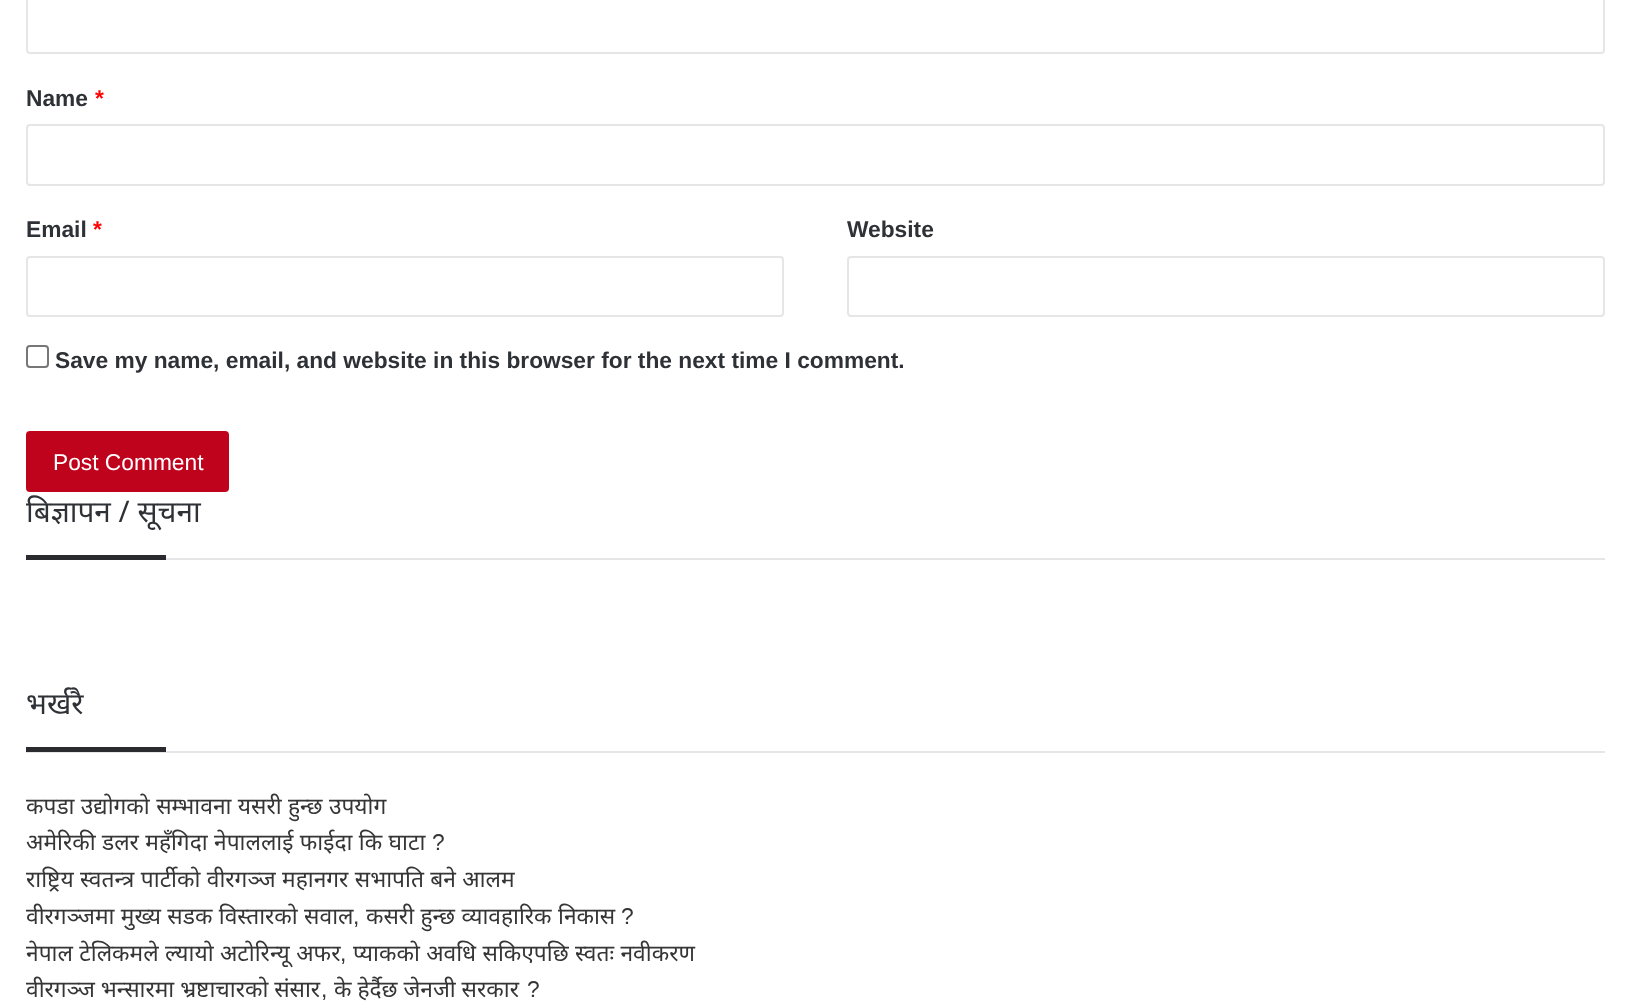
<svg xmlns="http://www.w3.org/2000/svg" width="1630" height="1008" viewBox="0 0 1630 1008">
  <rect width="100%" height="100%" fill="#fff"/>
  <rect x="27" y="-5" width="1577" height="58" rx="3" fill="none" stroke="#e6e6e6" stroke-width="2"/>
  <rect x="27" y="125" width="1577" height="60" rx="3" fill="none" stroke="#e6e6e6" stroke-width="2"/>
  <rect x="27" y="257" width="756" height="59" rx="3" fill="none" stroke="#e6e6e6" stroke-width="2"/>
  <rect x="848" y="257" width="756" height="59" rx="3" fill="none" stroke="#e6e6e6" stroke-width="2"/>
  <rect x="27" y="346" width="21" height="21" rx="3" fill="none" stroke="#777" stroke-width="2"/>
  <rect x="26" y="431" width="203" height="61" rx="4" fill="#c0031d"/>
  <path d="M166 558h1439v2H166z" fill="#e6e6e6"/>
  <path d="M26 555h140v5H26z" fill="#292b2f"/>
  <path d="M26 751h1579v2H26z" fill="#e6e6e6"/>
  <path d="M26 747h140v5H26z" fill="#292b2f"/>
  <text x="26" y="106" font-family="Liberation Sans" font-size="22.75" font-weight="bold" fill="#2e3136">Name</text>
  <text x="95" y="106" font-family="Liberation Sans" font-size="22.75" font-weight="bold" fill="#ff0303">*</text>
  <text x="26" y="237" font-family="Liberation Sans" font-size="22.75" font-weight="bold" fill="#2e3136">Email</text>
  <text x="93" y="237" font-family="Liberation Sans" font-size="22.75" font-weight="bold" fill="#ff0303">*</text>
  <g font-family="Liberation Sans" font-size="22.75" font-weight="bold" fill="#2e3136">
    <text x="847" y="237">Website</text>
    <text x="55" y="368">Save my name, email, and website in this browser for the next time I comment.</text>
  </g>
  <text x="53" y="470" font-family="Liberation Sans" font-size="22.75" fill="#fff">Post Comment</text>
  <g font-family="Noto Sans" font-size="29.75" fill="#2e3136">
    <text x="26" y="522">बिज्ञापन / सूचना</text>
    <text x="26" y="714">भर्खरै</text>
  </g>
  <g font-family="Noto Sans" font-size="22.75" fill="#353535">
    <text x="26" y="814" word-spacing="0.5">कपडा उद्योगको सम्भावना यसरी हुन्छ उपयोग</text>
    <text x="26" y="850" word-spacing="0.5">अमेरिकी डलर महँगिदा नेपाललाई फाईदा कि घाटा</text>
  </g>
  <text x="432" y="850" font-family="Liberation Sans" font-size="22.75" fill="#353535">?</text>
  <g font-family="Noto Sans" font-size="22.75" fill="#353535">
    <text x="26" y="887" word-spacing="0.5">राष्ट्रिय स्वतन्त्र पार्टीको वीरगञ्ज महानगर सभापति बने आलम</text>
    <text x="26" y="924" word-spacing="0.5">वीरगञ्जमा मुख्य सडक विस्तारको सवाल</text>
  </g>
  <text x="353" y="924" font-family="Liberation Sans" font-size="22.75" fill="#353535">,</text>
  <text x="366" y="924" word-spacing="0.5" font-family="Noto Sans" font-size="22.75" fill="#353535">कसरी हुन्छ व्यावहारिक निकास</text>
  <text x="621" y="924" font-family="Liberation Sans" font-size="22.75" fill="#353535">?</text>
  <text x="26" y="961" word-spacing="0.5" font-family="Noto Sans" font-size="22.75" fill="#353535">नेपाल टेलिकमले ल्यायो अटोरिन्यू अफर</text>
  <text x="340" y="961" font-family="Liberation Sans" font-size="22.75" fill="#353535">,</text>
  <g font-family="Noto Sans" font-size="22.75" fill="#353535">
    <text x="353" y="961" word-spacing="0.5">प्याकको अवधि सकिएपछि स्वतः नवीकरण</text>
    <text x="26" y="997">वीरगञ्ज भन्सारमा भ्रष्टाचारको संसार</text>
  </g>
  <g font-family="Liberation Sans" font-size="22.75" fill="#353535">
    <text x="527" y="997">?</text>
    <text x="321" y="997">,</text>
  </g>
  <text x="334" y="997" font-family="Noto Sans" font-size="22.75" fill="#353535">के हेर्दैछ जेनजी सरकार</text>
</svg>
